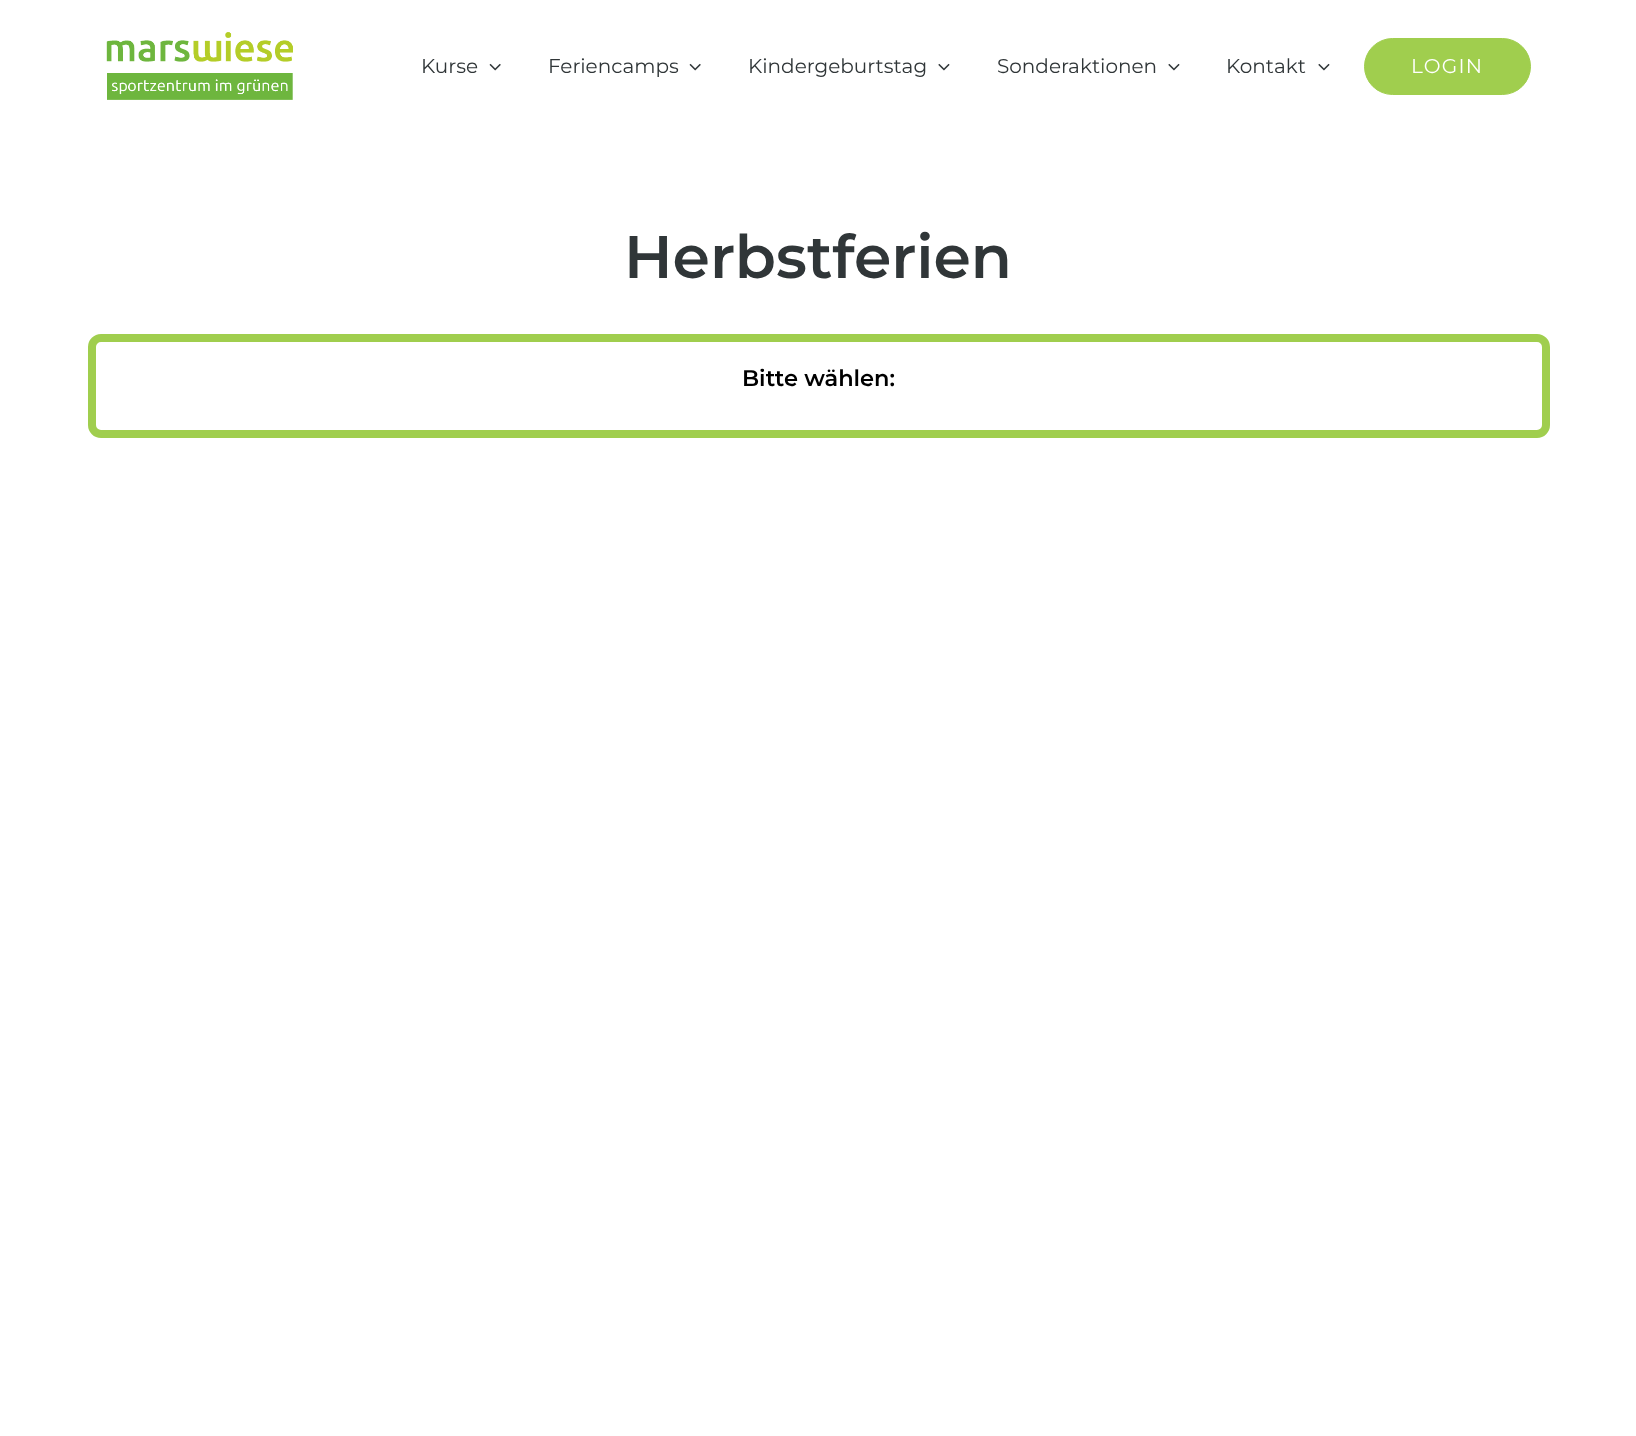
<svg xmlns="http://www.w3.org/2000/svg" width="1636" height="1436" viewBox="0 0 1636 1436">
  <rect width="100%" height="100%" fill="#fff"/>
  <image x="106" y="32" width="187" height="68" href="img/1.png"/>
  <image x="489" y="63" width="12" height="8" href="img/2.png"/>
  <image x="689" y="63" width="12" height="8" href="img/2.png"/>
  <image x="938" y="63" width="12" height="8" href="img/3.png"/>
  <image x="1168" y="63" width="12" height="8" href="img/3.png"/>
  <image x="1318" y="63" width="12" height="8" href="img/3.png"/>
  <rect x="1364.5" y="38.5" width="166" height="56" rx="28" fill="#a0ce4e" stroke="#a0ce4e"/>
  <rect x="92" y="338" width="1454" height="96" rx="9" fill="none" stroke="#a0ce4e" stroke-width="8"/>
  <g font-family="Montserrat" font-size="20" font-weight="100" fill="#303638">
    <text x="421" y="73">Kurse</text>
    <text x="548" y="73">Feriencamps</text>
    <text x="748" y="73">Kindergeburtstag</text>
    <text x="997" y="73">Sonderaktionen</text>
    <text x="1226" y="73">Kontakt</text>
  </g>
  <text x="1411" y="73" font-family="Montserrat" font-size="20" font-weight="100" letter-spacing="1.25" fill="#fff">LOGIN</text>
  <text x="624" y="278" font-family="'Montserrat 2'" font-size="60" font-weight="100" fill="#303638">Herbstferien</text>
  <text x="742" y="386" font-family="'Montserrat 2'" font-size="22.5" font-weight="100" fill="#000">Bitte wählen:</text>
</svg>
